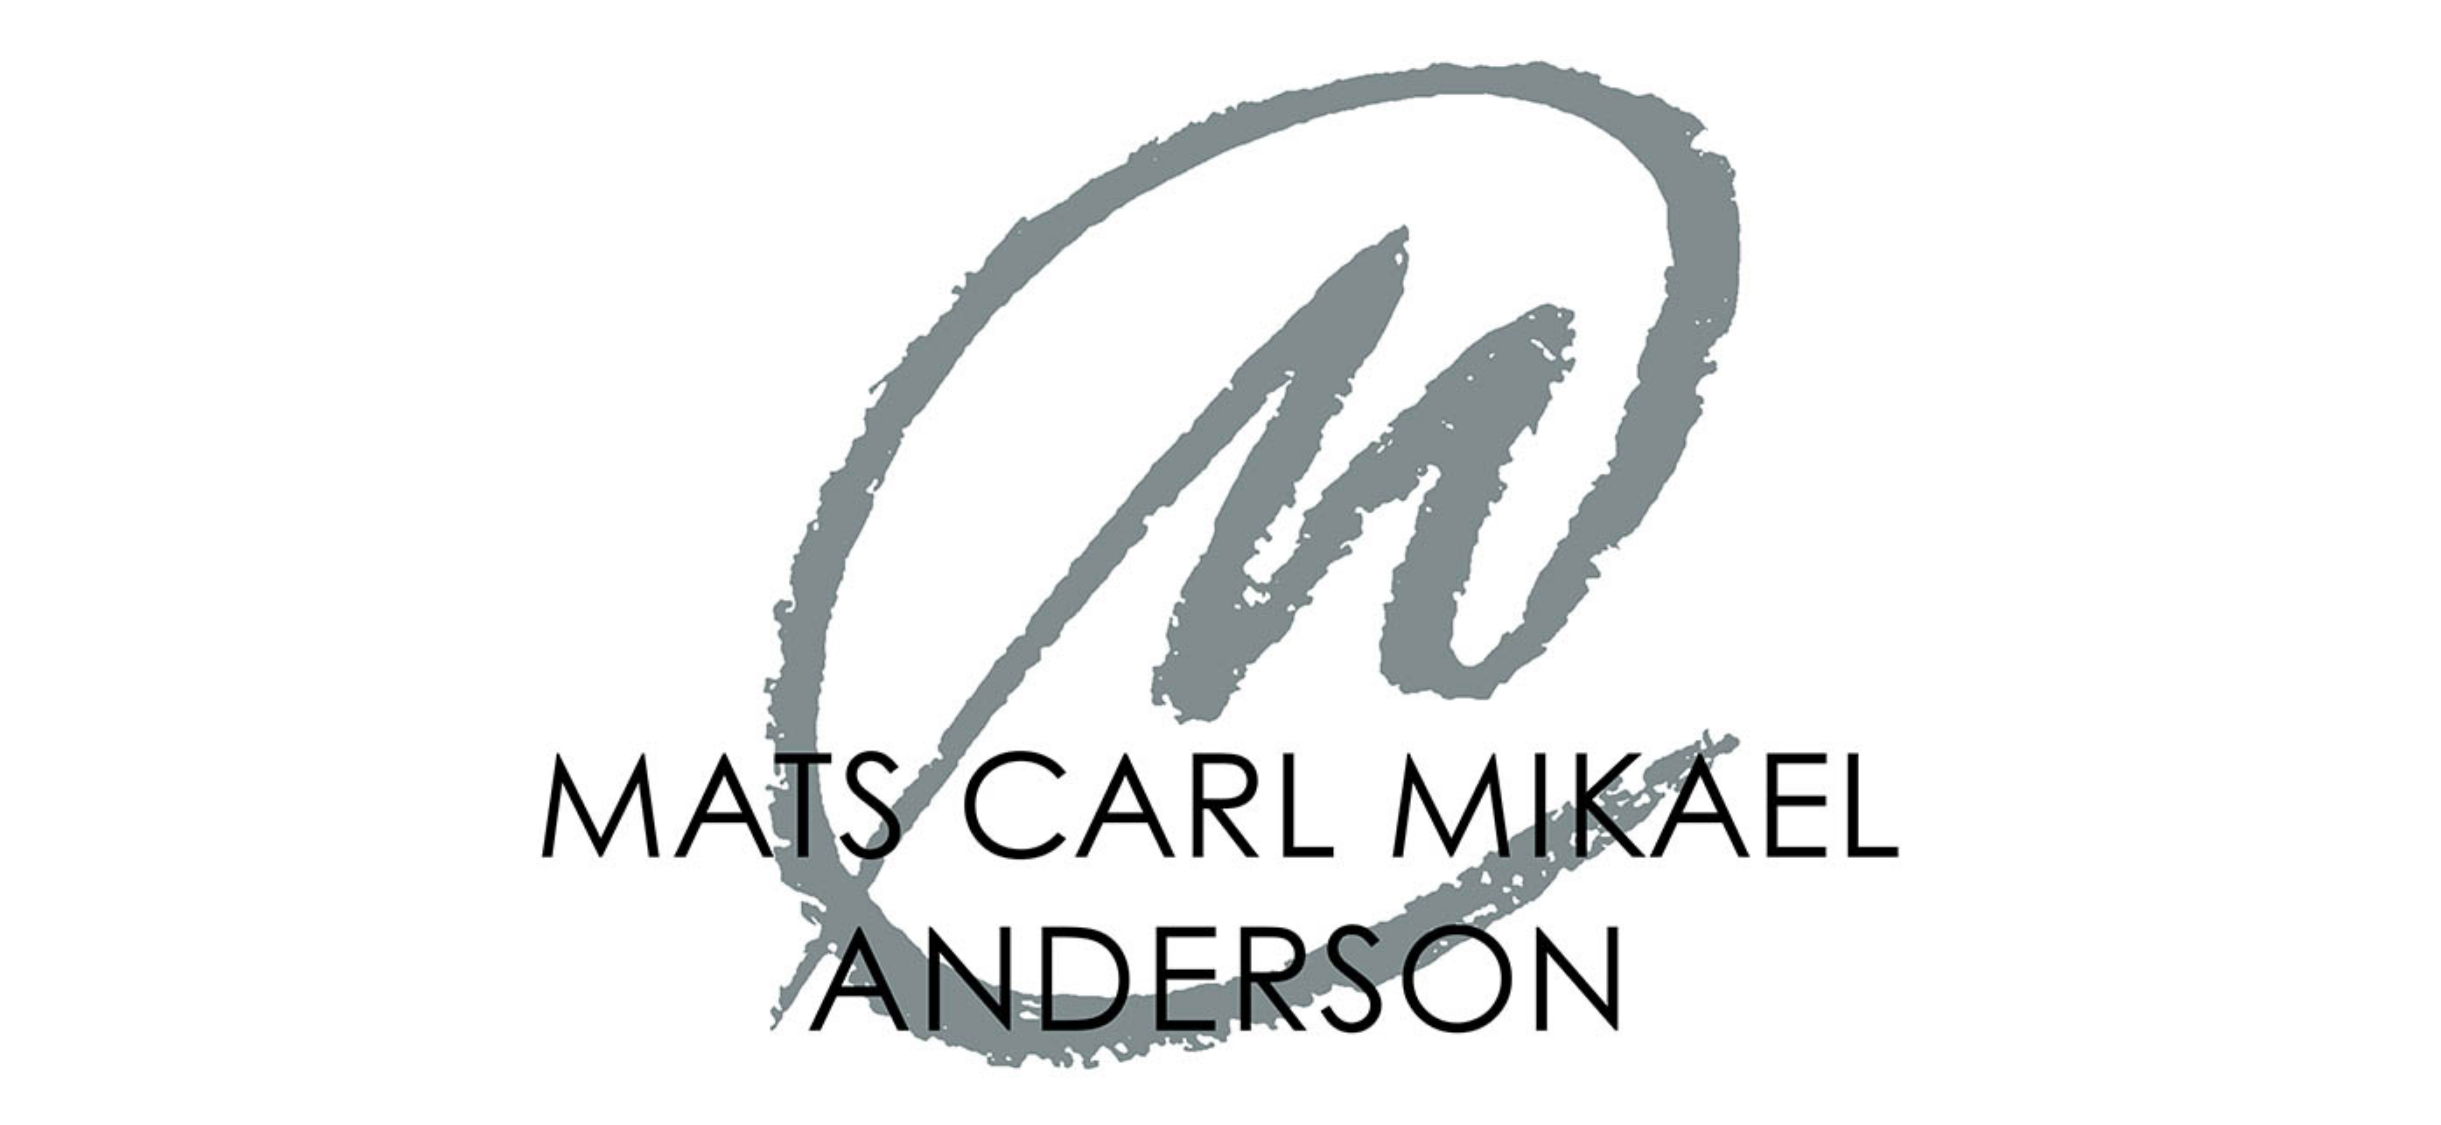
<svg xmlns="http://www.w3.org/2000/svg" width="2441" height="1125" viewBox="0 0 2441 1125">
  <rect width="100%" height="100%" fill="#fff"/>
  <image x="536" y="56" width="1366" height="1022" href="img/1.png"/>
</svg>
